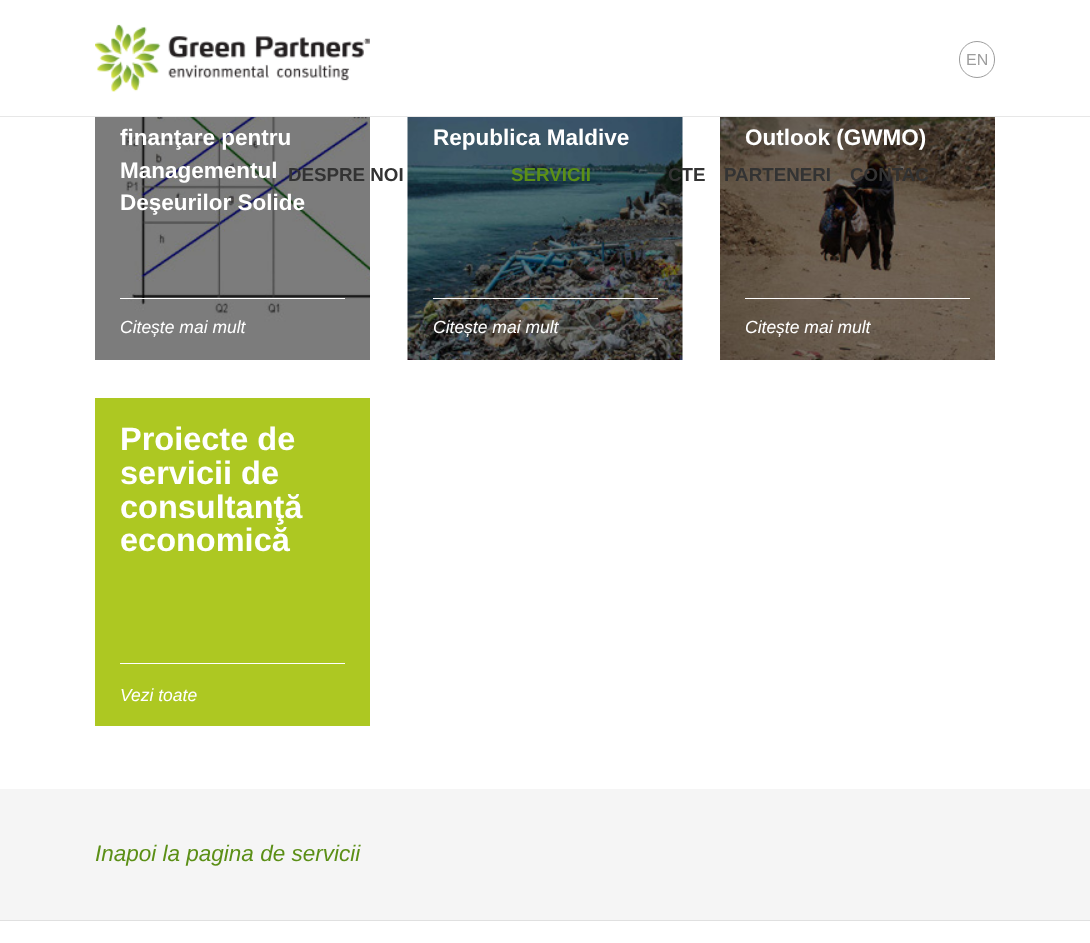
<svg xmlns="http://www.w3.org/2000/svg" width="1090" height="943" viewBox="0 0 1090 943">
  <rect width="100%" height="100%" fill="#fff"/>
  <path d="M0 116h1090v1H0z" fill="#e7e7e7"/>
  <image x="95" y="24" width="275" height="68" href="img/1.png"/>
  <rect x="959.5" y="41.5" width="35" height="36" rx="17.5" fill="none" stroke="#9d9d9d"/>
  <image x="95" y="117" width="275" height="243" href="img/2.png"/>
  <path d="M120 298h225v1H120z" fill="#fff"/>
  <image x="407" y="117" width="276" height="243" href="img/3.png"/>
  <path d="M433 298h225v1H433z" fill="#fff"/>
  <image x="720" y="117" width="275" height="243" href="img/4.png"/>
  <path d="M745 298h225v1H745z" fill="#fff"/>
  <path d="M95 398h275v328H95z" fill="#adc822"/>
  <path d="M120 663h225v1H120z" fill="#fff"/>
  <path d="M0 789h1090v131H0z" fill="#f5f5f5"/>
  <path d="M0 920h1090v1H0z" fill="#e0e0e0"/>
  <text x="966" y="65" font-family="Liberation Sans" font-size="16" fill="#9d9d9d">EN</text>
  <text x="288" y="181" font-family="Liberation Sans" font-size="18.75" font-weight="bold" fill="#333">DESPRE NOI</text>
  <text x="511" y="181" font-family="Liberation Sans" font-size="18.75" font-weight="bold" fill="#5b8f16">SERVICII</text>
  <g font-family="Liberation Sans" font-size="18.75" font-weight="bold" fill="#333">
    <text x="668" y="181">CTE</text>
    <text x="724" y="181">PARTENERI</text>
    <text x="850" y="181">CONTAC</text>
  </g>
  <g font-family="Liberation Sans" font-size="22.5" font-weight="bold" fill="#fff">
    <text x="120" y="145">finanţare pentru</text>
    <text x="120" y="178">Managementul</text>
    <text x="120" y="210">Deşeurilor Solide</text>
  </g>
  <text x="120" y="333" font-family="Liberation Sans" font-size="17.5" font-style="italic" fill="#fff">Citește mai mult</text>
  <text x="433" y="145" font-family="Liberation Sans" font-size="22.5" font-weight="bold" fill="#fff">Republica Maldive</text>
  <text x="433" y="333" font-family="Liberation Sans" font-size="17.5" font-style="italic" fill="#fff">Citește mai mult</text>
  <text x="745" y="145" font-family="Liberation Sans" font-size="22.5" font-weight="bold" fill="#fff">Outlook (GWMO)</text>
  <text x="745" y="333" font-family="Liberation Sans" font-size="17.5" font-style="italic" fill="#fff">Citește mai mult</text>
  <g font-family="Liberation Sans" font-size="32.5" font-weight="bold" fill="#fff">
    <text x="120" y="450">Proiecte de</text>
    <text x="120" y="484">servicii de</text>
    <text x="120" y="518">consultanţă</text>
    <text x="120" y="551">economică</text>
  </g>
  <text x="120" y="701" font-family="Liberation Sans" font-size="17.5" font-style="italic" fill="#fff">Vezi toate</text>
  <text x="95" y="861" font-family="Liberation Sans" font-size="22.5" font-style="italic" fill="#5b8f16">Inapoi la pagina de servicii</text>
</svg>
